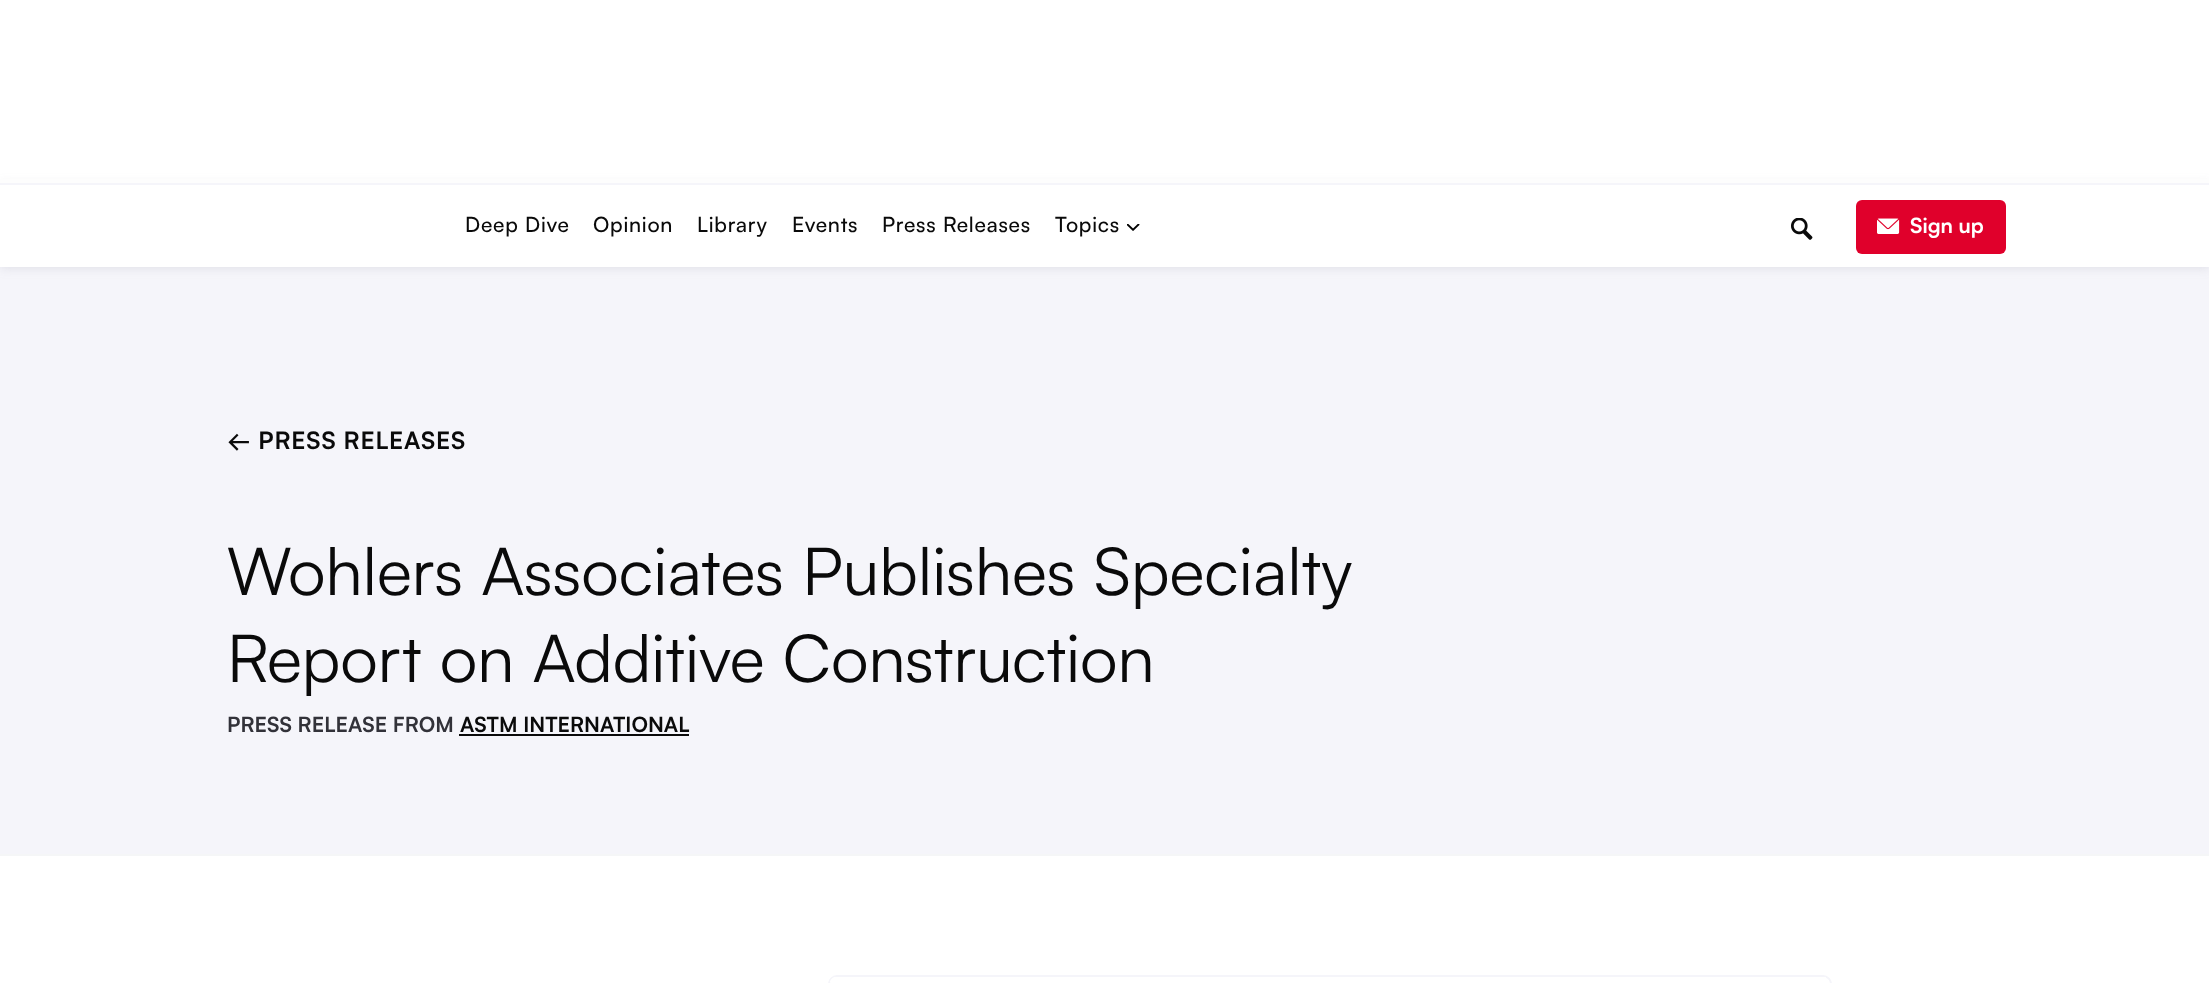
<svg xmlns="http://www.w3.org/2000/svg" width="2209" height="983" viewBox="0 0 2209 983">
  <rect width="100%" height="100%" fill="#fff"/>
  <path d="M0 267h2209v587H0z" fill="#f5f5fa"/>
  <path d="M0 185h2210v82H0z" fill="#78788c33" filter="blur(6px)"/>
  <path d="M0 179h2209v4H0z" fill="#fdfdfd"/>
  <path d="M0 183h2209v2H0z" fill="#f5f5fa"/>
  <path d="M0 185h2209v82H0z" fill="#fff"/>
  <image x="1127" y="224" width="13" height="7" href="img/1.png"/>
  <image x="1791" y="218" width="22" height="22" href="img/2.png"/>
  <rect x="1856" y="200" width="150" height="54" rx="6" fill="#e0002b"/>
  <image x="1877" y="218" width="23" height="16" href="img/3.png"/>
  <path d="M459 734h230v2H459z" fill="#0a0a0a"/>
  <path d="M0 854h2209v2H0z" fill="#f5f6f7"/>
  <rect x="829" y="976" width="1002" height="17" rx="8" fill="none" stroke="#f5f5fa" stroke-width="2"/>
  <image x="830" y="977" width="996" height="5" href="img/4.png"/>
  <g font-family="Satoshi" font-size="21" font-weight="500" letter-spacing="0.75" fill="#0a0a0a">
    <text x="465" y="232">Deep Dive</text>
    <text x="593" y="232">Opinion</text>
    <text x="697" y="232">Library</text>
    <text x="792" y="232">Events</text>
    <text x="882" y="232">Press Releases</text>
    <text x="1055" y="232">Topics</text>
  </g>
  <text x="1910" y="233" font-family="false" font-size="21" font-weight="bold" fill="#fff">Sign up</text>
  <text x="227" y="449" font-family="false" font-size="24" font-weight="bold" letter-spacing="0.75" fill="#0a0a0a">← PRESS RELEASES</text>
  <g font-family="false" font-size="66" fill="#0a0a0a">
    <text x="227" y="595">Wohlers Associates Publishes Specialty</text>
    <text x="227" y="682">Report on Additive Construction</text>
  </g>
  <text x="227" y="732" font-family="false" font-size="21" font-weight="bold" fill="#323239">PRESS RELEASE FROM</text>
  <text x="460" y="732" font-family="false" font-size="21" font-weight="bold" fill="#0a0a0a">ASTM INTERNATIONAL</text>
</svg>
